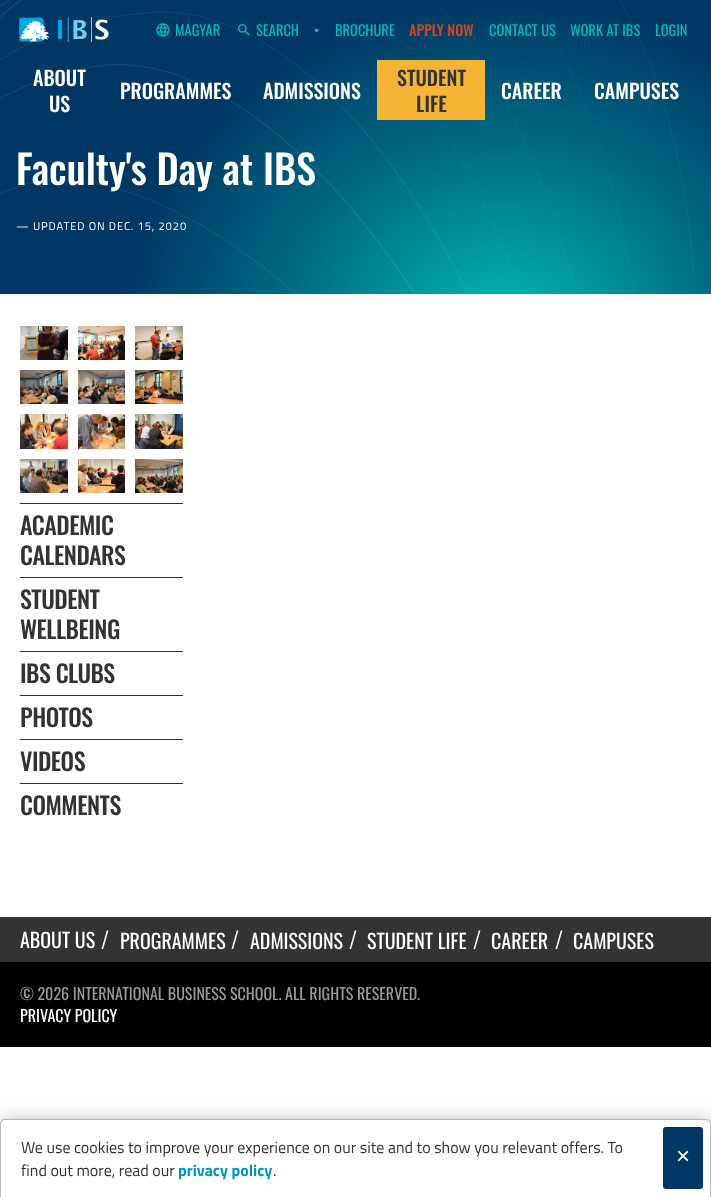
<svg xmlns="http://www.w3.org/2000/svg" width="711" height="1197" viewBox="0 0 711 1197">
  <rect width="100%" height="100%" fill="#fff"/>
  <path d="M0 0h711v294H0z" fill="#003764"/>
  <image x="0" y="0" width="711" height="120" href="img/1.png"/>
  <image x="19" y="17" width="90" height="26" href="img/2.png"/>
  <image x="156" y="23" width="14" height="14" href="img/3.png"/>
  <image x="238" y="24" width="12" height="12" href="img/4.png"/>
  <path d="M377 60h108v60H377z" fill="#f6b436"/>
  <image x="0" y="120" width="711" height="174" href="img/5.png"/>
  <image x="20" y="326" width="48" height="34" href="img/6.png"/>
  <image x="78" y="326" width="47" height="34" href="img/7.png"/>
  <image x="135" y="326" width="48" height="34" href="img/8.png"/>
  <image x="20" y="370" width="48" height="34" href="img/9.png"/>
  <image x="78" y="370" width="47" height="34" href="img/10.png"/>
  <image x="135" y="370" width="48" height="34" href="img/11.png"/>
  <image x="20" y="414" width="48" height="35" href="img/12.png"/>
  <image x="78" y="414" width="47" height="35" href="img/13.png"/>
  <image x="135" y="414" width="48" height="35" href="img/14.png"/>
  <image x="20" y="459" width="48" height="34" href="img/15.png"/>
  <image x="78" y="459" width="47" height="34" href="img/16.png"/>
  <image x="135" y="459" width="48" height="34" href="img/17.png"/>
  <path d="M20 503h163v1H20z" fill="#333"/>
  <path d="M20 577h163v1H20z" fill="#333"/>
  <path d="M20 651h163v1H20z" fill="#333"/>
  <path d="M20 695h163v1H20z" fill="#333"/>
  <path d="M20 739h163v1H20z" fill="#333"/>
  <path d="M20 783h163v1H20z" fill="#333"/>
  <path d="M0 917h711v45H0z" fill="#333"/>
  <path d="M0 962h711v85H0z" fill="#000"/>
  <rect y="1119" width="711" height="78" rx="5" fill="#00000040" filter="blur(7.5px)"/>
  <path d="M5 1119H706C709 1119 711 1121 711 1124V1197H0V1124C0 1121 2 1119 5 1119Z" fill="#fff"/>
  <path d="M5 1119H706C709 1119 711 1121 711 1124V1197H0V1124C0 1121 2 1119 5 1119ZM5 1120H706C708 1120 710 1122 710 1124V1197H1V1124C1 1122 3 1120 5 1120Z" fill="#bbb" fill-rule="evenodd"/>
  <rect x="663" y="1127" width="40" height="62" rx="3" fill="#003764"/>
  <g font-family="Oswald" font-size="14.5" fill="#00bcb5">
    <text x="175" y="36">MAGYAR</text>
    <text x="256" y="36">SEARCH</text>
    <text x="314" y="36">•</text>
    <text x="335" y="36">BROCHURE</text>
  </g>
  <text x="409" y="36" font-family="Oswald" font-size="14.5" font-weight="500" fill="#d3461e">APPLY NOW</text>
  <g font-family="Oswald" font-size="14.5" fill="#00bcb5">
    <text x="489" y="36">CONTACT US</text>
    <text x="570" y="36">WORK AT IBS</text>
    <text x="655" y="36">LOGIN</text>
  </g>
  <g font-family="Oswald" font-size="20" font-weight="500" fill="#fff">
    <text x="33" y="86">ABOUT</text>
    <text x="49" y="112">US</text>
    <text x="120" y="99">PROGRAMMES</text>
    <text x="263" y="99">ADMISSIONS</text>
  </g>
  <g font-family="Oswald" font-size="20" font-weight="500" fill="#333">
    <text x="397" y="86">STUDENT</text>
    <text x="416" y="112">LIFE</text>
  </g>
  <g font-family="Oswald" font-size="20" font-weight="500" fill="#fff">
    <text x="501" y="99">CAREER</text>
    <text x="594" y="99">CAMPUSES</text>
  </g>
  <text x="16" y="185" font-family="Oswald" font-size="40" font-weight="500" fill="#fff">Faculty's Day at IBS</text>
  <text x="16" y="230" font-family="Titillium Web" font-size="11.25" letter-spacing="0.85" fill="#fff">— UPDATED ON DEC. 15, 2020</text>
  <g font-family="Oswald" font-size="24" font-weight="500" letter-spacing="-0.5" fill="#333">
    <text x="20" y="535">ACADEMIC</text>
    <text x="20" y="565">CALENDARS</text>
    <text x="20" y="609">STUDENT</text>
    <text x="20" y="639">WELLBEING</text>
    <text x="20" y="683">IBS CLUBS</text>
    <text x="20" y="727">PHOTOS</text>
    <text x="20" y="771">VIDEOS</text>
    <text x="20" y="815">COMMENTS</text>
  </g>
  <text x="20" y="948" font-family="Oswald" font-size="20" fill="#fff">ABOUT US</text>
  <text x="101" y="949" font-family="Oswald" font-size="23" font-weight="300" fill="#fff">/</text>
  <text x="120" y="949" font-family="Oswald" font-size="20" fill="#fff">PROGRAMMES</text>
  <text x="231" y="949" font-family="Oswald" font-size="23" font-weight="300" fill="#fff">/</text>
  <text x="250" y="949" font-family="Oswald" font-size="20" fill="#fff">ADMISSIONS</text>
  <text x="349" y="949" font-family="Oswald" font-size="23" font-weight="300" fill="#fff">/</text>
  <text x="367" y="949" font-family="Oswald" font-size="20" fill="#fff">STUDENT LIFE</text>
  <text x="473" y="949" font-family="Oswald" font-size="23" font-weight="300" fill="#fff">/</text>
  <text x="491" y="949" font-family="Oswald" font-size="20" fill="#fff">CAREER</text>
  <text x="555" y="949" font-family="Oswald" font-size="23" font-weight="300" fill="#fff">/</text>
  <text x="573" y="949" font-family="Oswald" font-size="20" fill="#fff">CAMPUSES</text>
  <text x="20" y="1000" font-family="Oswald" font-size="16" fill="#999">© 2026 INTERNATIONAL BUSINESS SCHOOL. ALL RIGHTS RESERVED.</text>
  <text x="20" y="1022" font-family="Oswald" font-size="16" fill="#fff">PRIVACY POLICY</text>
  <g font-family="Titillium Web" font-size="16" fill="#333">
    <text x="21" y="1153">We use cookies to improve your experience on our site and to show you relevant offers. To</text>
    <text x="21" y="1176">find out more, read our</text>
  </g>
  <text x="178" y="1176" font-family="Titillium Web" font-size="16" font-weight="bold" fill="#0094ca">privacy policy</text>
  <text x="273" y="1176" font-family="Titillium Web" font-size="16" fill="#333">.</text>
  <text x="676" y="1164" font-family="Liberation Sans" font-size="24" fill="#fff">×</text>
</svg>
